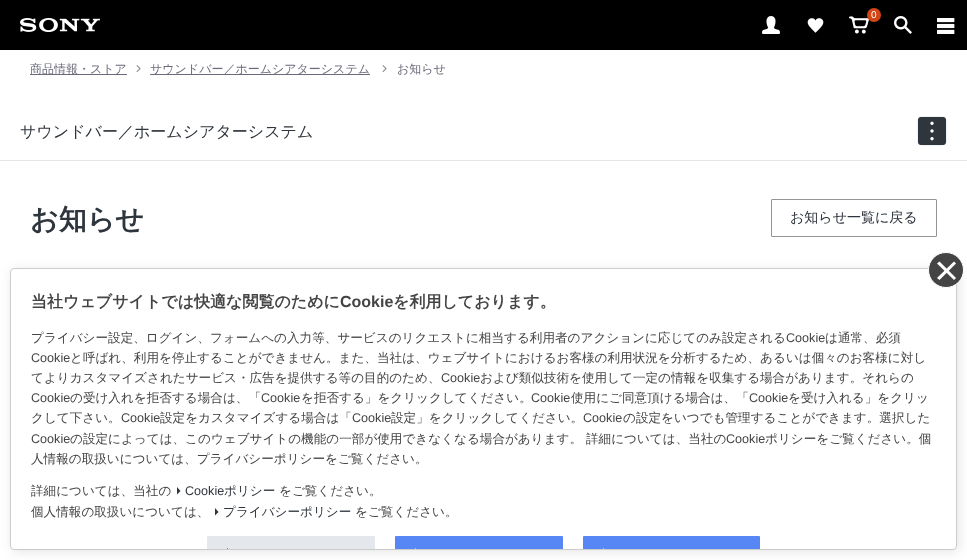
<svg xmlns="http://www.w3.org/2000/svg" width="967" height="560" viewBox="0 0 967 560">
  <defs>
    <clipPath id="clip1"><path d="M225 548h8v1H225z"/></clipPath>
    <clipPath id="clip2"><path d="M413 548h8v1H413z"/></clipPath>
    <clipPath id="clip3"><path d="M601 548h8v1H601z"/></clipPath>
  </defs>
  <rect width="100%" height="100%" fill="#fff"/>
  <path d="M0 0h967v50H0z" fill="#000"/>
  <image x="849" y="16" width="20" height="18" href="img/1.png"/>
  <circle cx="874" cy="15" r="7" fill="#d24615"/>
  <image x="762" y="16" width="18" height="18" href="img/2.png"/>
  <image x="807" y="18" width="17" height="15" href="img/3.png"/>
  <image x="894" y="16" width="18" height="18" href="img/4.png"/>
  <image x="20" y="18" width="80" height="14" href="img/5.png"/>
  <image x="937" y="18" width="18" height="16" href="img/6.png"/>
  <path d="M30 74h97v1H30z" fill="#6b6b7b"/>
  <image x="136" y="65" width="5" height="7" href="img/7.png"/>
  <path d="M150 74h220v1H150z" fill="#6b6b7b"/>
  <image x="382" y="65" width="5" height="7" href="img/7.png"/>
  <path d="M0 160h967v1H0z" fill="#e5e5e5"/>
  <image x="917" y="116" width="30" height="30" href="img/8.png"/>
  <rect x="771.5" y="199.5" width="165" height="37" rx="0.5" fill="none" stroke="#959595"/>
  <rect x="12" y="270" width="947" height="282" rx="4" fill="#0000001a" filter="blur(6px)"/>
  <rect x="10.5" y="268.5" width="946" height="281" rx="3.5" fill="#fff" stroke="#ccc"/>
  <circle cx="946" cy="270" r="17.5" fill="#444" stroke="#fff"/>
  <path d="M937 278L954 261.5L956 263.5L939.5 280Z" fill="#fff"/>
  <path d="M939.5 261.5L956 278L954 280L937 263.5Z" fill="#fff"/>
  <path d="M177 487L180.5 491L177 494.5Z" fill="#2f353d"/>
  <path d="M215 508L218.5 512L215 515.5Z" fill="#2f353d"/>
  <path d="M208 536H374C374.5 536 375 536.5 375 537V549H207V537C207 536.5 207.5 536 208 536Z" fill="#e4e7ec"/>
  <g clip-path="url(#clip1)">
    <path d="M227 548L231.5 552L227 556.5Z" fill="#2f353d"/>
  </g>
  <path d="M396 536H562C562.5 536 563 536.5 563 537V549H395V537C395 536.5 395.5 536 396 536Z" fill="#5787f4"/>
  <g clip-path="url(#clip2)">
    <path d="M415 548L419.5 552L415 556.5Z" fill="#fff"/>
  </g>
  <path d="M584 536H759C759.5 536 760 536.5 760 537V549H583V537C583 536.5 583.5 536 584 536Z" fill="#5787f4"/>
  <g clip-path="url(#clip3)">
    <path d="M603 548L607.5 552L603 556.5Z" fill="#fff"/>
  </g>
  <text x="871" y="18" font-family="Liberation Sans" font-size="10" fill="#fff">0</text>
  <g font-family="WenQuanYi Zen Hei" font-size="12" font-weight="500" fill="#6b6b7b">
    <text x="30" y="73">商品情報・ストア</text>
    <text x="150" y="73">サウンドバー／ホームシアターシステム</text>
    <text x="397" y="73">お知らせ</text>
  </g>
  <text x="20" y="137" font-family="WenQuanYi Zen Hei" font-size="16" font-weight="500" fill="#2f353d">サウンドバー／ホームシアターシステム</text>
  <text x="30" y="229" font-family="WenQuanYi Zen Hei" font-size="28" font-weight="bold" fill="#2f353d">お知らせ</text>
  <text x="790" y="222" font-family="WenQuanYi Zen Hei" font-size="14" font-weight="500" fill="#2f353d">お知らせ一覧に戻る</text>
  <text x="31" y="307" font-family="WenQuanYi Zen Hei" font-size="16" font-weight="bold" fill="#444">当社ウェブサイトでは快適な閲覧のために</text>
  <text x="340" y="307" font-family="Liberation Sans" font-size="16" font-weight="bold" fill="#444">Cookie</text>
  <text x="393" y="307" font-family="WenQuanYi Zen Hei" font-size="16" font-weight="bold" fill="#444">を利用しております。</text>
  <text x="31" y="342" font-family="WenQuanYi Zen Hei" font-size="12.6" font-weight="500" fill="#444">プライバシー設定、ログイン、フォームへの入力等、サービスのリクエストに相当する利用者のアクションに応じてのみ設定される</text>
  <text x="786" y="342" font-family="Liberation Sans" font-size="12.6" fill="#444">Cookie</text>
  <text x="825" y="342" font-family="WenQuanYi Zen Hei" font-size="12.6" font-weight="500" fill="#444">は通常、必須</text>
  <text x="31" y="362" font-family="Liberation Sans" font-size="12.6" fill="#444">Cookie</text>
  <g font-family="WenQuanYi Zen Hei" font-size="12.6" font-weight="500" fill="#444">
    <text x="70" y="362">と呼ばれ、利用を停止することができません。また、当社は、ウェブサイトにおけるお客様の利用状況を分析するため、あるいは個々のお客様に対し</text>
    <text x="31" y="382">てよりカスタマイズされたサービス・広告を提供する等の目的のため、</text>
  </g>
  <text x="441" y="382" font-family="Liberation Sans" font-size="12.6" fill="#444">Cookie</text>
  <text x="480" y="382" font-family="WenQuanYi Zen Hei" font-size="12.6" font-weight="500" fill="#444">および類似技術を使用して一定の情報を収集する場合があります。それらの</text>
  <text x="31" y="402" font-family="Liberation Sans" font-size="12.6" fill="#444">Cookie</text>
  <text x="70" y="402" font-family="WenQuanYi Zen Hei" font-size="12.6" font-weight="500" fill="#444">の受け入れを拒否する場合は、「</text>
  <text x="261" y="402" font-family="Liberation Sans" font-size="12.6" fill="#444">Cookie</text>
  <text x="301" y="402" font-family="WenQuanYi Zen Hei" font-size="12.6" font-weight="500" fill="#444">を拒否する」をクリックしてください。</text>
  <text x="531" y="402" font-family="Liberation Sans" font-size="12.6" fill="#444">Cookie</text>
  <text x="571" y="402" font-family="WenQuanYi Zen Hei" font-size="12.6" font-weight="500" fill="#444">使用にご同意頂ける場合は、「</text>
  <text x="749" y="402" font-family="Liberation Sans" font-size="12.6" fill="#444">Cookie</text>
  <g font-family="WenQuanYi Zen Hei" font-size="12.6" font-weight="500" fill="#444">
    <text x="788" y="402">を受け入れる」をクリッ</text>
    <text x="31" y="422">クして下さい。</text>
  </g>
  <text x="121" y="422" font-family="Liberation Sans" font-size="12.6" fill="#444">Cookie</text>
  <text x="160" y="422" font-family="WenQuanYi Zen Hei" font-size="12.6" font-weight="500" fill="#444">設定をカスタマイズする場合は「</text>
  <text x="352" y="422" font-family="Liberation Sans" font-size="12.6" fill="#444">Cookie</text>
  <text x="391" y="422" font-family="WenQuanYi Zen Hei" font-size="12.6" font-weight="500" fill="#444">設定」をクリックしてください。</text>
  <text x="583" y="422" font-family="Liberation Sans" font-size="12.6" fill="#444">Cookie</text>
  <text x="623" y="422" font-family="WenQuanYi Zen Hei" font-size="12.6" font-weight="500" fill="#444">の設定をいつでも管理することができます。選択した</text>
  <text x="31" y="443" font-family="Liberation Sans" font-size="12.6" fill="#444">Cookie</text>
  <g font-family="WenQuanYi Zen Hei" font-size="12.6" font-weight="500" fill="#444">
    <text x="70" y="443">の設定によっては、このウェブサイトの機能の一部が使用できなくなる場合があります。</text>
    <text x="586" y="443">詳細については、当社の</text>
  </g>
  <text x="726" y="443" font-family="Liberation Sans" font-size="12.6" fill="#444">Cookie</text>
  <g font-family="WenQuanYi Zen Hei" font-size="12.6" font-weight="500" fill="#444">
    <text x="765" y="443">ポリシーをご覧ください。個</text>
    <text x="31" y="463">人情報の取扱いについては、プライバシーポリシーをご覧ください。</text>
    <text x="31" y="495">詳細については、当社の</text>
  </g>
  <text x="185" y="495" font-family="Liberation Sans" font-size="12.6" fill="#2f353d">Cookie</text>
  <text x="224" y="495" font-family="WenQuanYi Zen Hei" font-size="12.6" font-weight="500" fill="#2f353d">ポリシー</text>
  <g font-family="WenQuanYi Zen Hei" font-size="12.6" font-weight="500" fill="#444">
    <text x="279" y="495">をご覧ください。</text>
    <text x="31" y="516">個人情報の取扱いについては、</text>
  </g>
  <text x="223" y="516" font-family="WenQuanYi Zen Hei" font-size="12.6" font-weight="500" fill="#2f353d">プライバシーポリシー</text>
  <text x="355" y="516" font-family="WenQuanYi Zen Hei" font-size="12.6" font-weight="500" fill="#444">をご覧ください。</text>
</svg>
